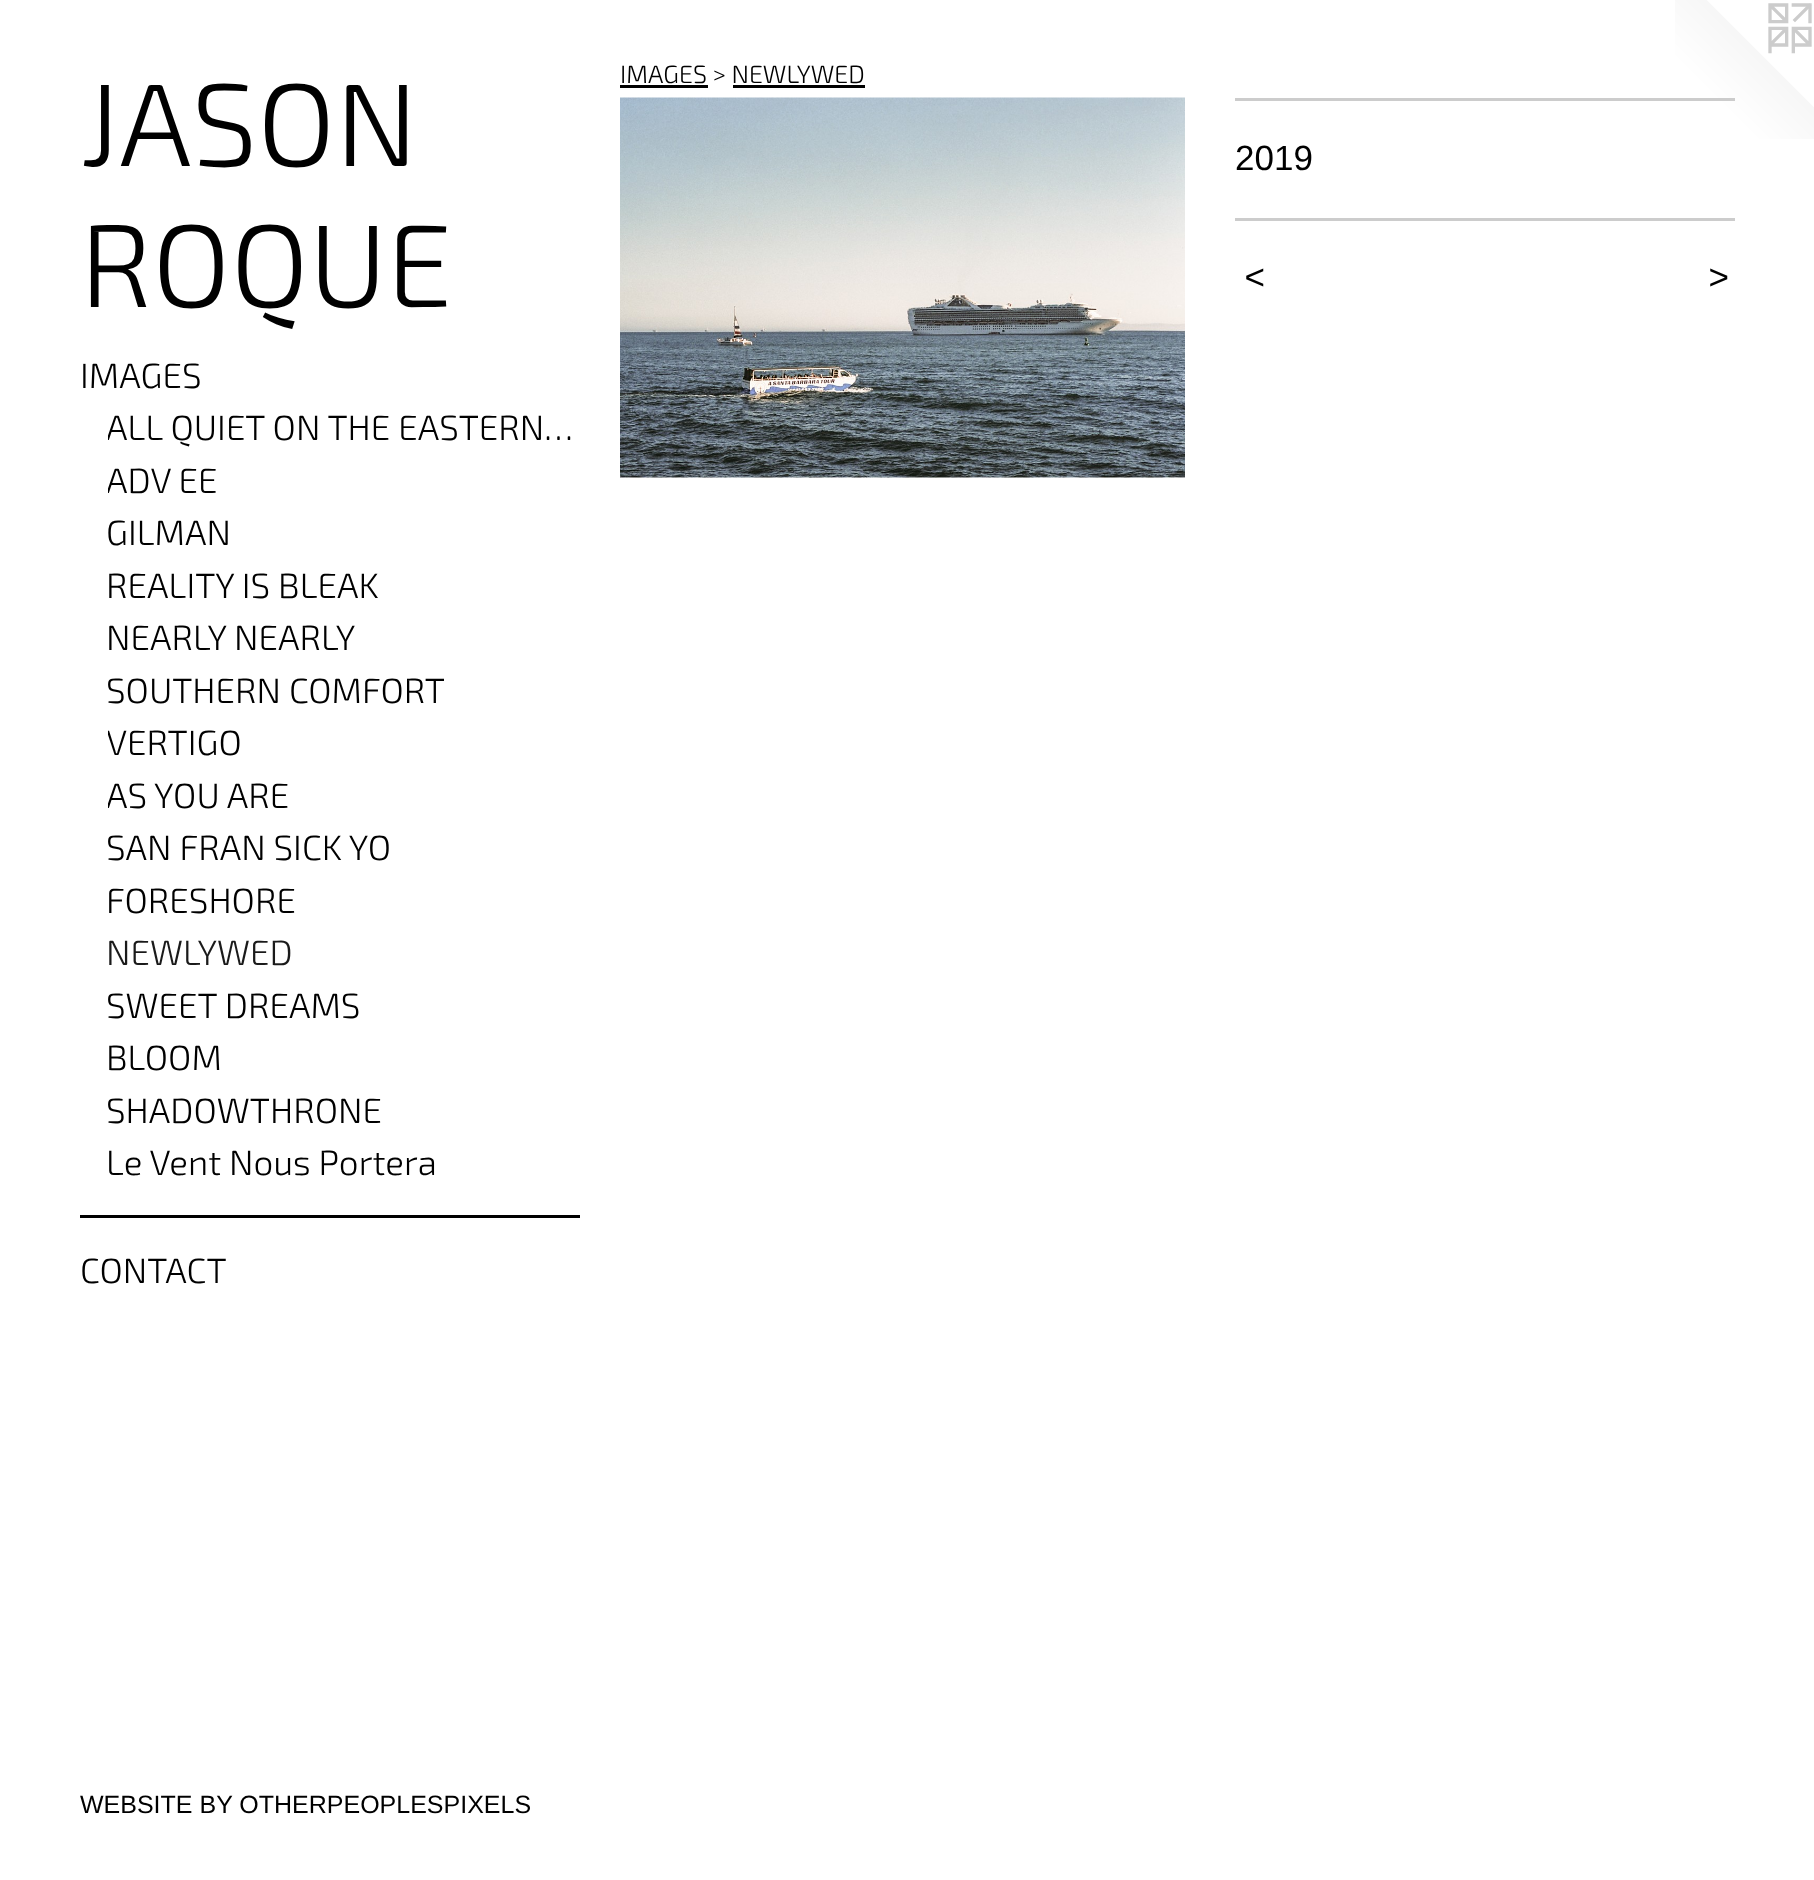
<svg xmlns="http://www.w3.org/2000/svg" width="1814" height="1880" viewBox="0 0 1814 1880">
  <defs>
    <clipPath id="clip1"><path d="M108 400h472v53H108z"/></clipPath>
    <clipPath id="clip2"><path d="M108 453h472v52H108z"/></clipPath>
    <clipPath id="clip3"><path d="M108 715h472v53H108z"/></clipPath>
    <clipPath id="clip4"><path d="M108 768h472v52H108z"/></clipPath>
  </defs>
  <rect width="100%" height="100%" fill="#fff"/>
  <path d="M80 1215h500v3H80z" fill="#000"/>
  <path d="M620 85h88v3H620z" fill="#000"/>
  <path d="M733 85h132v3H733z" fill="#000"/>
  <image x="620" y="97" width="565" height="381" href="img/1.png"/>
  <image x="1675" y="0" width="139" height="139" href="img/2.png"/>
  <path d="M1235 98h500v3H1235z" fill="#ccc"/>
  <path d="M1235 218h500v3H1235z" fill="#ccc"/>
  <g font-family="'Exo 2'" font-size="117.5" font-weight="300" fill="#000">
    <text x="80" y="166">JASON</text>
    <text x="80" y="307">ROQUE</text>
  </g>
  <text x="80" y="388" font-family="'Exo 2'" font-size="35" font-weight="300" fill="#000">IMAGES</text>
  <g clip-path="url(#clip1)">
    <text x="106" y="440" font-family="'Exo 2'" font-size="35" font-weight="300" fill="#000">ALL QUIET ON THE EASTERN…</text>
  </g>
  <g clip-path="url(#clip2)">
    <text x="106" y="493" font-family="'Exo 2'" font-size="35" font-weight="300" fill="#000">ADV EE</text>
  </g>
  <g font-family="'Exo 2'" font-size="35" font-weight="300" fill="#000">
    <text x="106" y="545">GILMAN</text>
    <text x="106" y="598">REALITY IS BLEAK</text>
    <text x="106" y="650">NEARLY NEARLY</text>
    <text x="106" y="703">SOUTHERN COMFORT</text>
  </g>
  <g clip-path="url(#clip3)">
    <text x="106" y="755" font-family="'Exo 2'" font-size="35" font-weight="300" fill="#000">VERTIGO</text>
  </g>
  <g clip-path="url(#clip4)">
    <text x="106" y="808" font-family="'Exo 2'" font-size="35" font-weight="300" fill="#000">AS YOU ARE</text>
  </g>
  <g font-family="'Exo 2'" font-size="35" font-weight="300" fill="#000">
    <text x="106" y="860">SAN FRAN SICK YO</text>
    <text x="106" y="913">FORESHORE</text>
  </g>
  <text x="106" y="965" font-family="'Exo 2'" font-size="35" font-weight="300" fill="#1a1a1a">NEWLYWED</text>
  <g font-family="'Exo 2'" font-size="35" font-weight="300" fill="#000">
    <text x="106" y="1018">SWEET DREAMS</text>
    <text x="106" y="1070">BLOOM</text>
    <text x="106" y="1123">SHADOWTHRONE</text>
    <text x="106" y="1175">Le Vent Nous Portera</text>
    <text x="80" y="1283">CONTACT</text>
  </g>
  <text x="80" y="1813" font-family="Liberation Sans" font-size="25" fill="#000">WEBSITE BY OTHERPEOPLESPIXELS</text>
  <text x="620" y="83" font-family="'Exo 2'" font-size="25" font-weight="300" fill="#000">IMAGES &gt; NEWLYWED</text>
  <text x="1235" y="170" font-family="Liberation Sans" font-size="35" fill="#000">2019</text>
  <g font-family="Liberation Sans" font-size="35" font-style="italic" letter-spacing="2" fill="#000">
    <text x="1244" y="289">&lt;</text>
    <text x="1708" y="289">&gt;</text>
  </g>
</svg>
